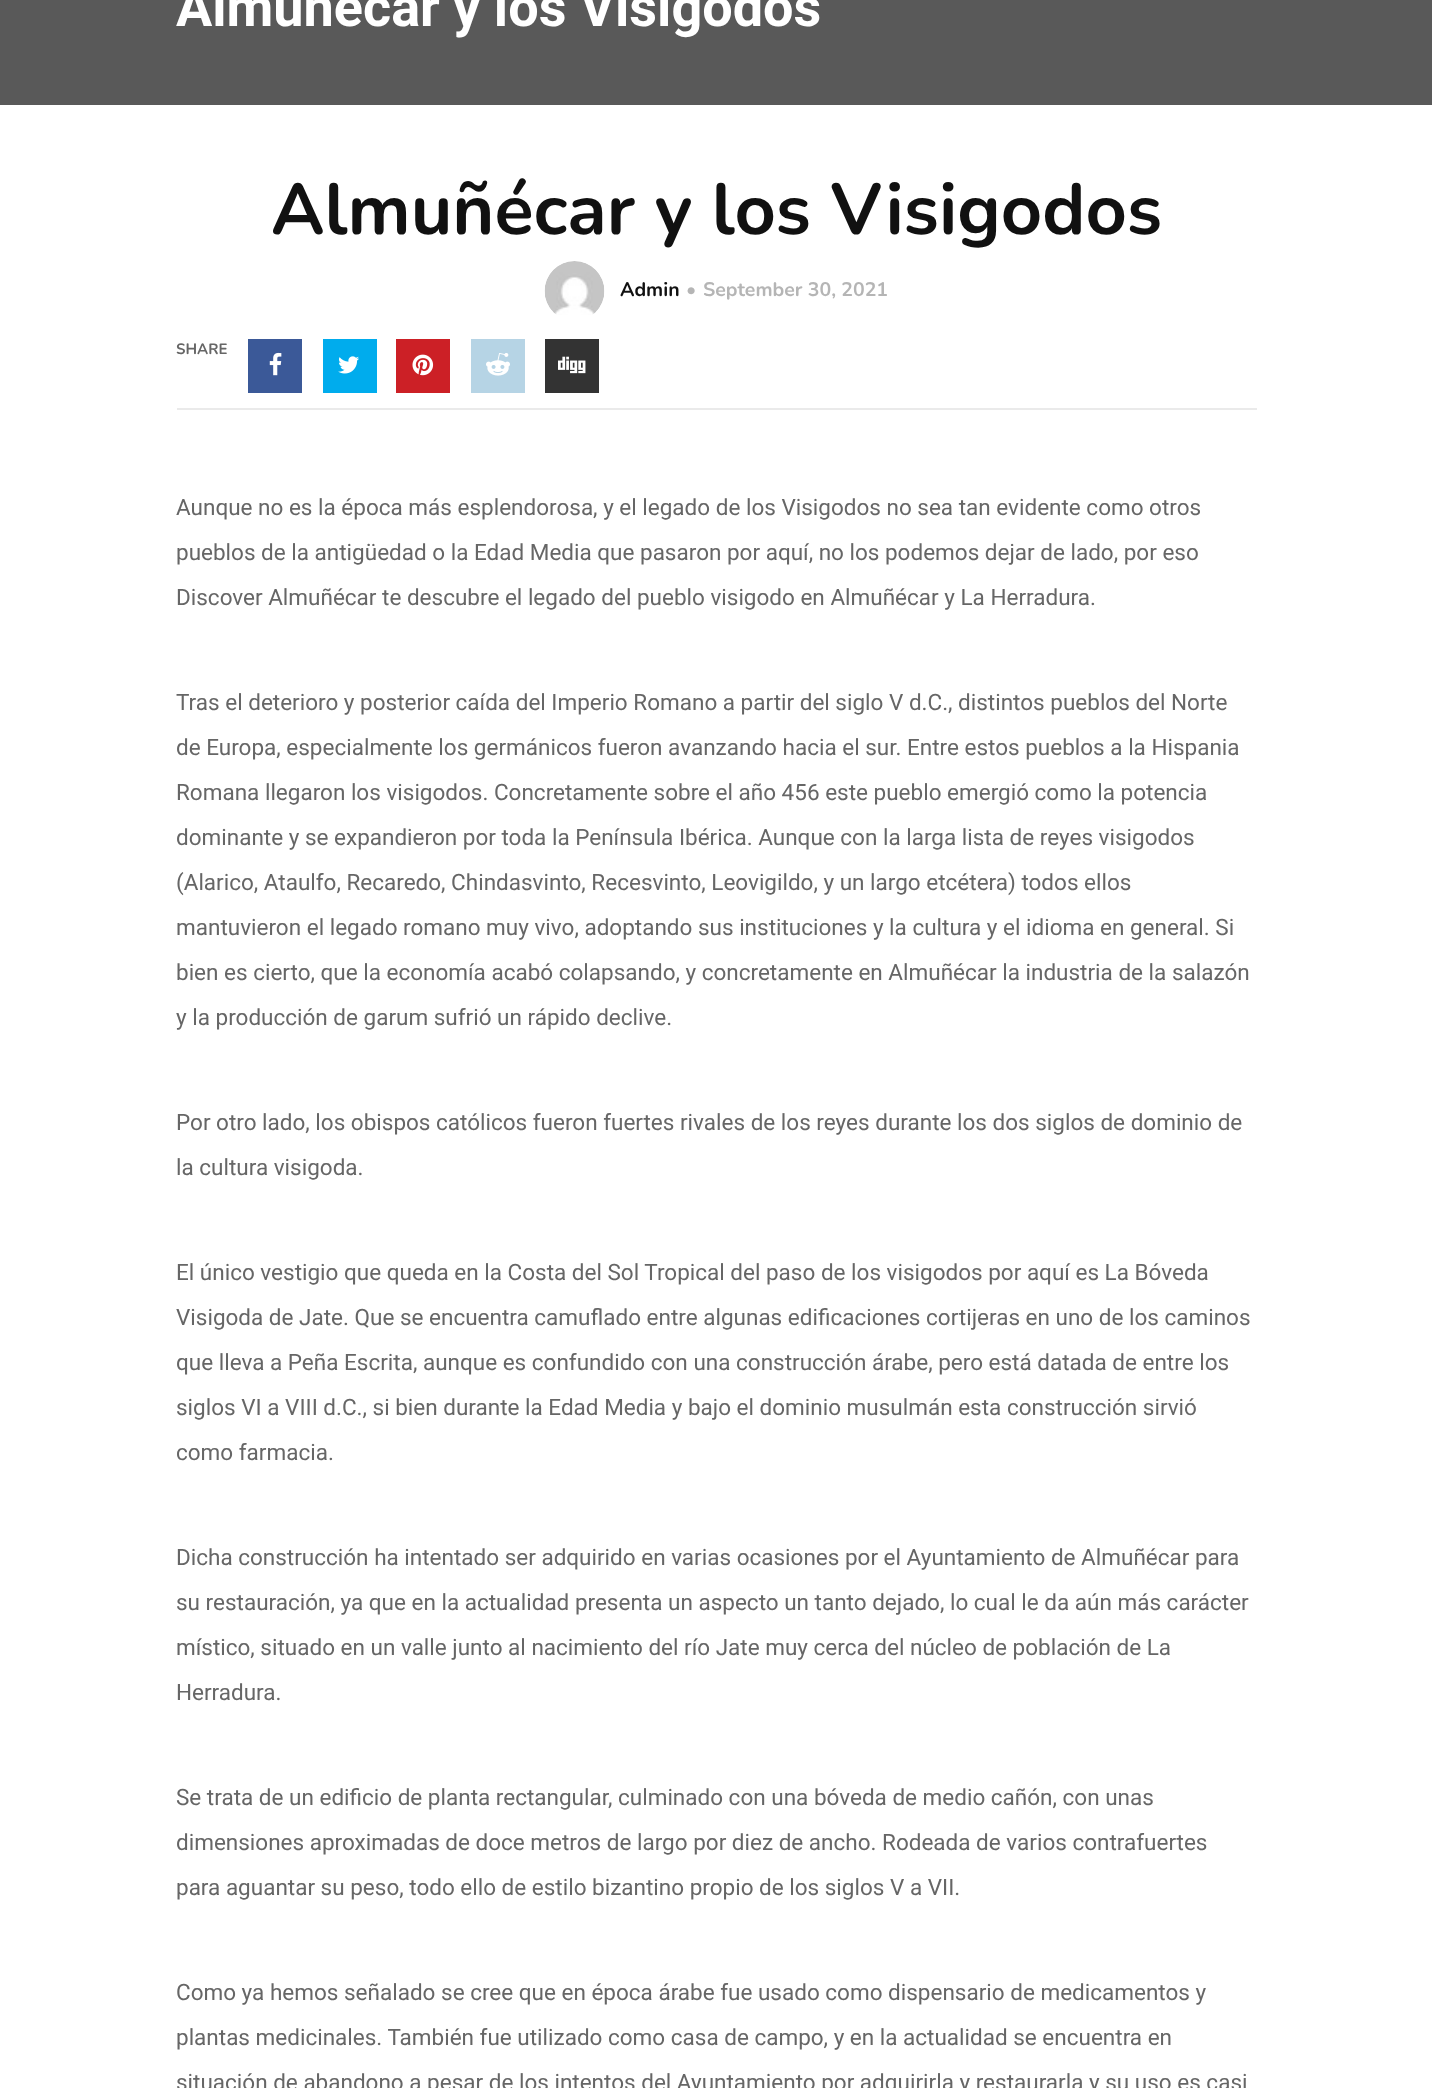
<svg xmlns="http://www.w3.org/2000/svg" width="1432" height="2088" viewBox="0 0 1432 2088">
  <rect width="100%" height="100%" fill="#fff"/>
  <path d="M0 0h1432v105H0z" fill="#595959"/>
  <image x="544" y="261" width="61" height="54" href="img/1.png"/>
  <path d="M248 339h54v54H248z" fill="#3b5998"/>
  <image x="269" y="352" width="13" height="24" href="img/2.png"/>
  <path d="M323 339h54v54H323z" fill="#00aced"/>
  <image x="338" y="356" width="21" height="18" href="img/3.png"/>
  <path d="M396 339h54v54H396z" fill="#cc2026"/>
  <image x="412" y="354" width="22" height="22" href="img/4.png"/>
  <path d="M471 339h54v54H471z" fill="#b6d4e5"/>
  <image x="486" y="353" width="24" height="23" href="img/5.png"/>
  <path d="M545 339h54v54H545z" fill="#333"/>
  <image x="558" y="356" width="28" height="18" href="img/6.png"/>
  <path d="M177 408h1080v2H177z" fill="#eaeaea"/>
  <text x="176" y="26" font-family="Roboto" font-size="54" font-weight="bold" fill="#fff">Almuñécar y los Visigodos</text>
  <text x="271" y="234" font-family="Nunito" font-size="72" font-weight="200" fill="#111">Almuñécar y los Visigodos</text>
  <text x="620" y="296" font-family="Nunito" font-size="19.5" font-weight="200" fill="#111">Admin</text>
  <g font-family="Nunito" font-size="19.5" font-weight="200" fill="#b5b5b5">
    <text x="686" y="296">•</text>
    <text x="703" y="296">September 30, 2021</text>
  </g>
  <text x="176" y="354" font-family="Nunito" font-size="15" font-weight="200" fill="#666">SHARE</text>
  <g font-family="Roboto" font-size="22.5" fill="#666">
    <text x="176" y="515">Aunque no es la época más esplendorosa, y el legado de los Visigodos no sea tan evidente como otros</text>
    <text x="176" y="560">pueblos de la antigüedad o la Edad Media que pasaron por aquí, no los podemos dejar de lado, por eso</text>
    <text x="176" y="605">Discover Almuñécar te descubre el legado del pueblo visigodo en Almuñécar y La Herradura.</text>
    <text x="176" y="710">Tras el deterioro y posterior caída del Imperio Romano a partir del siglo V d.C., distintos pueblos del Norte</text>
    <text x="176" y="755">de Europa, especialmente los germánicos fueron avanzando hacia el sur. Entre estos pueblos a la Hispania</text>
    <text x="176" y="800">Romana llegaron los visigodos. Concretamente sobre el año 456 este pueblo emergió como la potencia</text>
    <text x="176" y="845">dominante y se expandieron por toda la Península Ibérica. Aunque con la larga lista de reyes visigodos</text>
    <text x="176" y="890">(Alarico, Ataulfo, Recaredo, Chindasvinto, Recesvinto, Leovigildo, y un largo etcétera) todos ellos</text>
    <text x="176" y="935">mantuvieron el legado romano muy vivo, adoptando sus instituciones y la cultura y el idioma en general. Si</text>
    <text x="176" y="980">bien es cierto, que la economía acabó colapsando, y concretamente en Almuñécar la industria de la salazón</text>
    <text x="176" y="1025">y la producción de garum sufrió un rápido declive.</text>
    <text x="176" y="1130">Por otro lado, los obispos católicos fueron fuertes rivales de los reyes durante los dos siglos de dominio de</text>
    <text x="176" y="1175">la cultura visigoda.</text>
    <text x="176" y="1280">El único vestigio que queda en la Costa del Sol Tropical del paso de los visigodos por aquí es La Bóveda</text>
    <text x="176" y="1325">Visigoda de Jate. Que se encuentra camuflado entre algunas edificaciones cortijeras en uno de los caminos</text>
    <text x="176" y="1370">que lleva a Peña Escrita, aunque es confundido con una construcción árabe, pero está datada de entre los</text>
    <text x="176" y="1415">siglos VI a VIII d.C., si bien durante la Edad Media y bajo el dominio musulmán esta construcción sirvió</text>
    <text x="176" y="1460">como farmacia.</text>
    <text x="176" y="1565">Dicha construcción ha intentado ser adquirido en varias ocasiones por el Ayuntamiento de Almuñécar para</text>
    <text x="176" y="1610">su restauración, ya que en la actualidad presenta un aspecto un tanto dejado, lo cual le da aún más carácter</text>
    <text x="176" y="1655">místico, situado en un valle junto al nacimiento del río Jate muy cerca del núcleo de población de La</text>
    <text x="176" y="1700">Herradura.</text>
    <text x="176" y="1805">Se trata de un edificio de planta rectangular, culminado con una bóveda de medio cañón, con unas</text>
    <text x="176" y="1850">dimensiones aproximadas de doce metros de largo por diez de ancho. Rodeada de varios contrafuertes</text>
    <text x="176" y="1895">para aguantar su peso, todo ello de estilo bizantino propio de los siglos V a VII.</text>
    <text x="176" y="2000">Como ya hemos señalado se cree que en época árabe fue usado como dispensario de medicamentos y</text>
    <text x="176" y="2045">plantas medicinales. También fue utilizado como casa de campo, y en la actualidad se encuentra en</text>
    <text x="176" y="2090">situación de abandono a pesar de los intentos del Ayuntamiento por adquirirla y restaurarla y su uso es casi</text>
  </g>
</svg>
